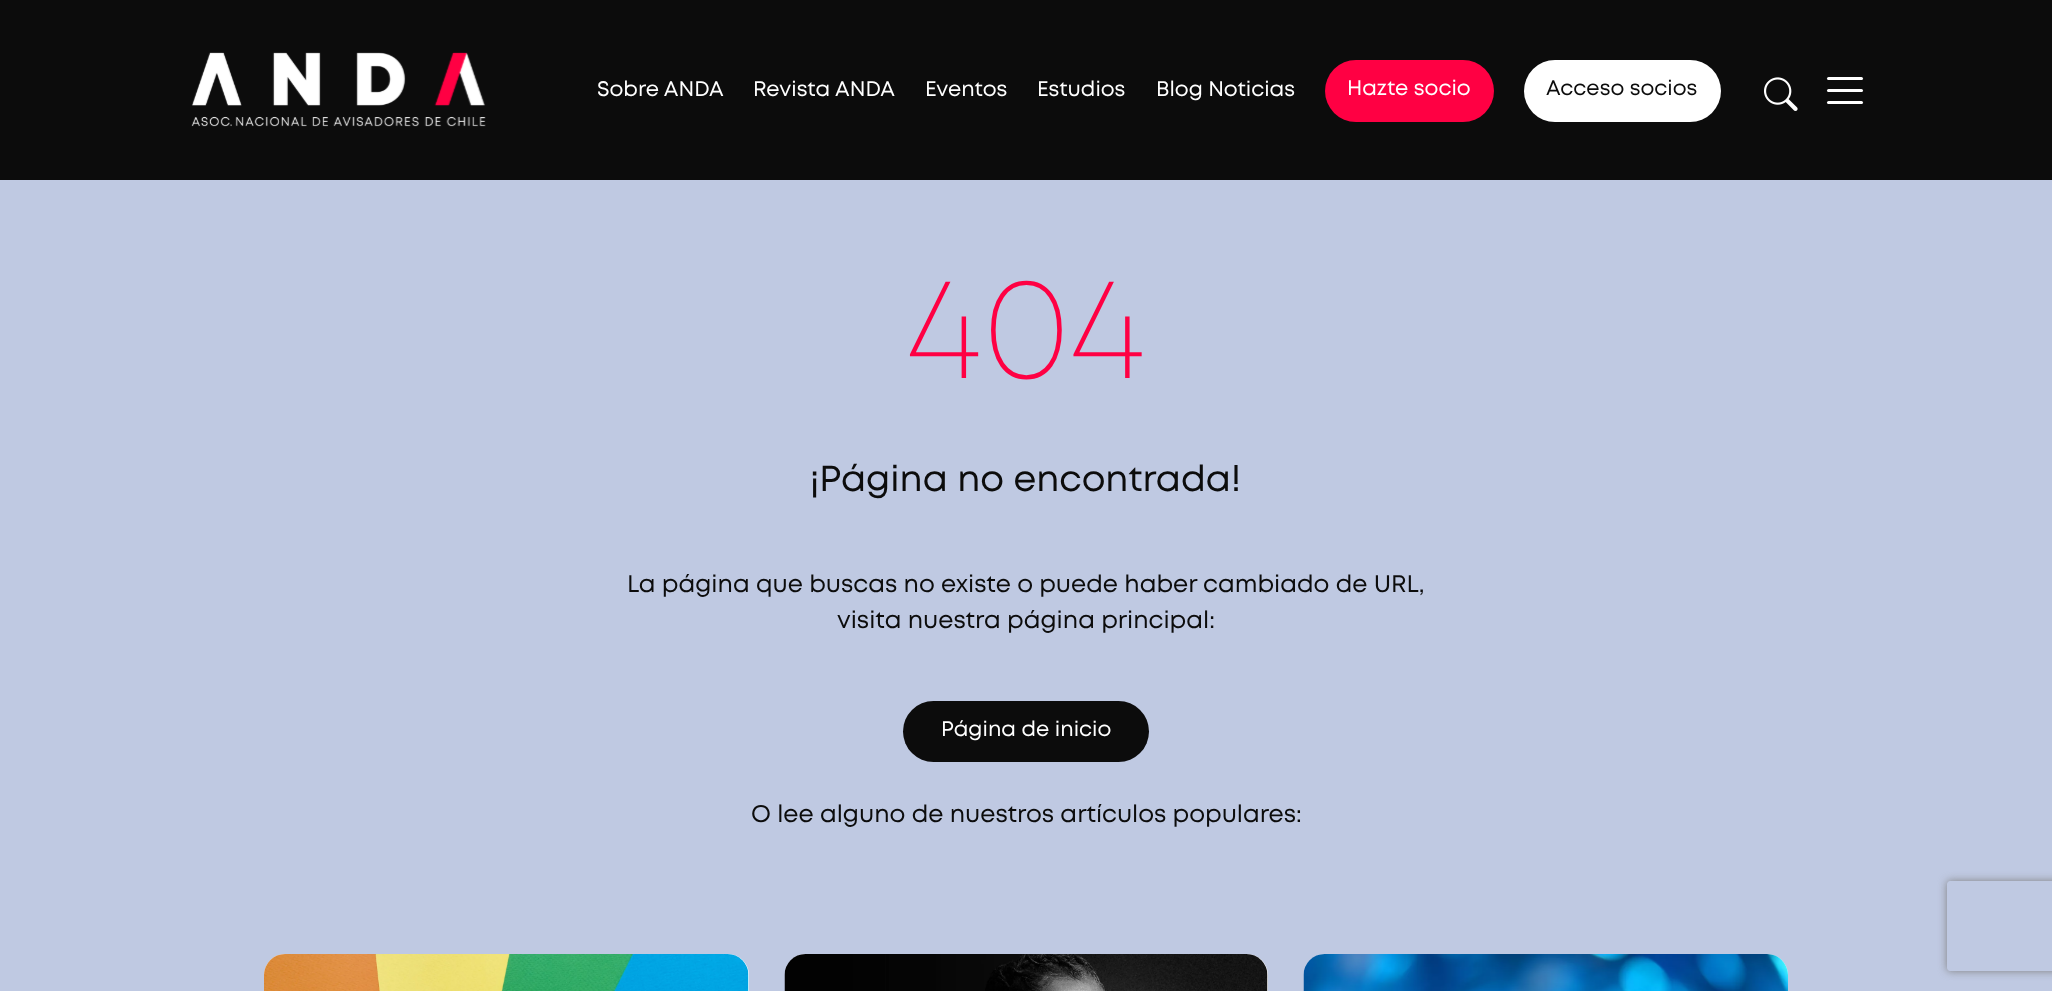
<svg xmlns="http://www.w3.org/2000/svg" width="2052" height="991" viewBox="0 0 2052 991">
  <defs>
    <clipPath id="clip1"><path d="M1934 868H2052V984H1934ZM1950 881H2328C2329.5 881 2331 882.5 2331 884V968C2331 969.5 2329.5 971 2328 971H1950C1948.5 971 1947 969.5 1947 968V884C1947 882.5 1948.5 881 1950 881Z" clip-rule="evenodd"/></clipPath>
  </defs>
  <rect width="100%" height="100%" fill="#0c0c0c"/>
  <image x="191" y="52" width="295" height="75" href="img/1.png"/>
  <rect x="1325" y="60" width="169" height="62" rx="31" fill="#ff0043"/>
  <rect x="1524" y="60" width="197" height="62" rx="31" fill="#fff"/>
  <image x="1764" y="77" width="34" height="34" href="img/2.png"/>
  <rect x="1827" y="77" width="36" height="3" rx="1.5" fill="#fff"/>
  <rect x="1827" y="89" width="36" height="3" rx="1.5" fill="#fff"/>
  <rect x="1827" y="101" width="36" height="3" rx="1.5" fill="#fff"/>
  <path d="M0 180h2052v811H0z" fill="#bfc9e2"/>
  <rect x="903" y="701" width="246" height="61" rx="30.5" fill="#0c0c0c"/>
  <rect x="264" y="954" width="485" height="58" rx="21" fill="#fff"/>
  <image x="264" y="954" width="485" height="37" href="img/3.png"/>
  <rect x="785" y="954" width="483" height="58" rx="21" fill="#fff"/>
  <image x="784" y="954" width="484" height="37" href="img/4.png"/>
  <rect x="1304" y="954" width="484" height="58" rx="21" fill="#fff"/>
  <image x="1303" y="954" width="485" height="37" href="img/5.png"/>
  <g clip-path="url(#clip1)">
    <rect x="1947" y="881" width="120" height="90" rx="3" fill="#808080" filter="blur(4px)"/>
  </g>
  <g font-family="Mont" font-size="21" fill="#fff">
    <text x="597" y="96">Sobre ANDA</text>
    <text x="753" y="96">Revista ANDA</text>
    <text x="925" y="96">Eventos</text>
    <text x="1037" y="96">Estudios</text>
    <text x="1156" y="96">Blog Noticias</text>
    <text x="1347" y="95">Hazte socio</text>
  </g>
  <text x="1546" y="95" font-family="Mont" font-size="21" fill="#0c0c0c">Acceso socios</text>
  <text x="907" y="378" font-family="Mont" font-size="144" font-weight="200" fill="#ff0043">404</text>
  <text x="810" y="491" font-family="Mont" font-size="36" fill="#0c0c0c">¡Página no encontrada!</text>
  <g font-family="Mont" font-size="24" fill="#0c0c0c">
    <text x="627" y="592">La página que buscas no existe o puede haber cambiado de URL,</text>
    <text x="837" y="628">visita nuestra página principal:</text>
  </g>
  <text x="941" y="736" font-family="Mont" font-size="21" fill="#fff">Página de inicio</text>
  <text x="751" y="822" font-family="Mont" font-size="24" fill="#0c0c0c">O lee alguno de nuestros artículos populares:</text>
</svg>
